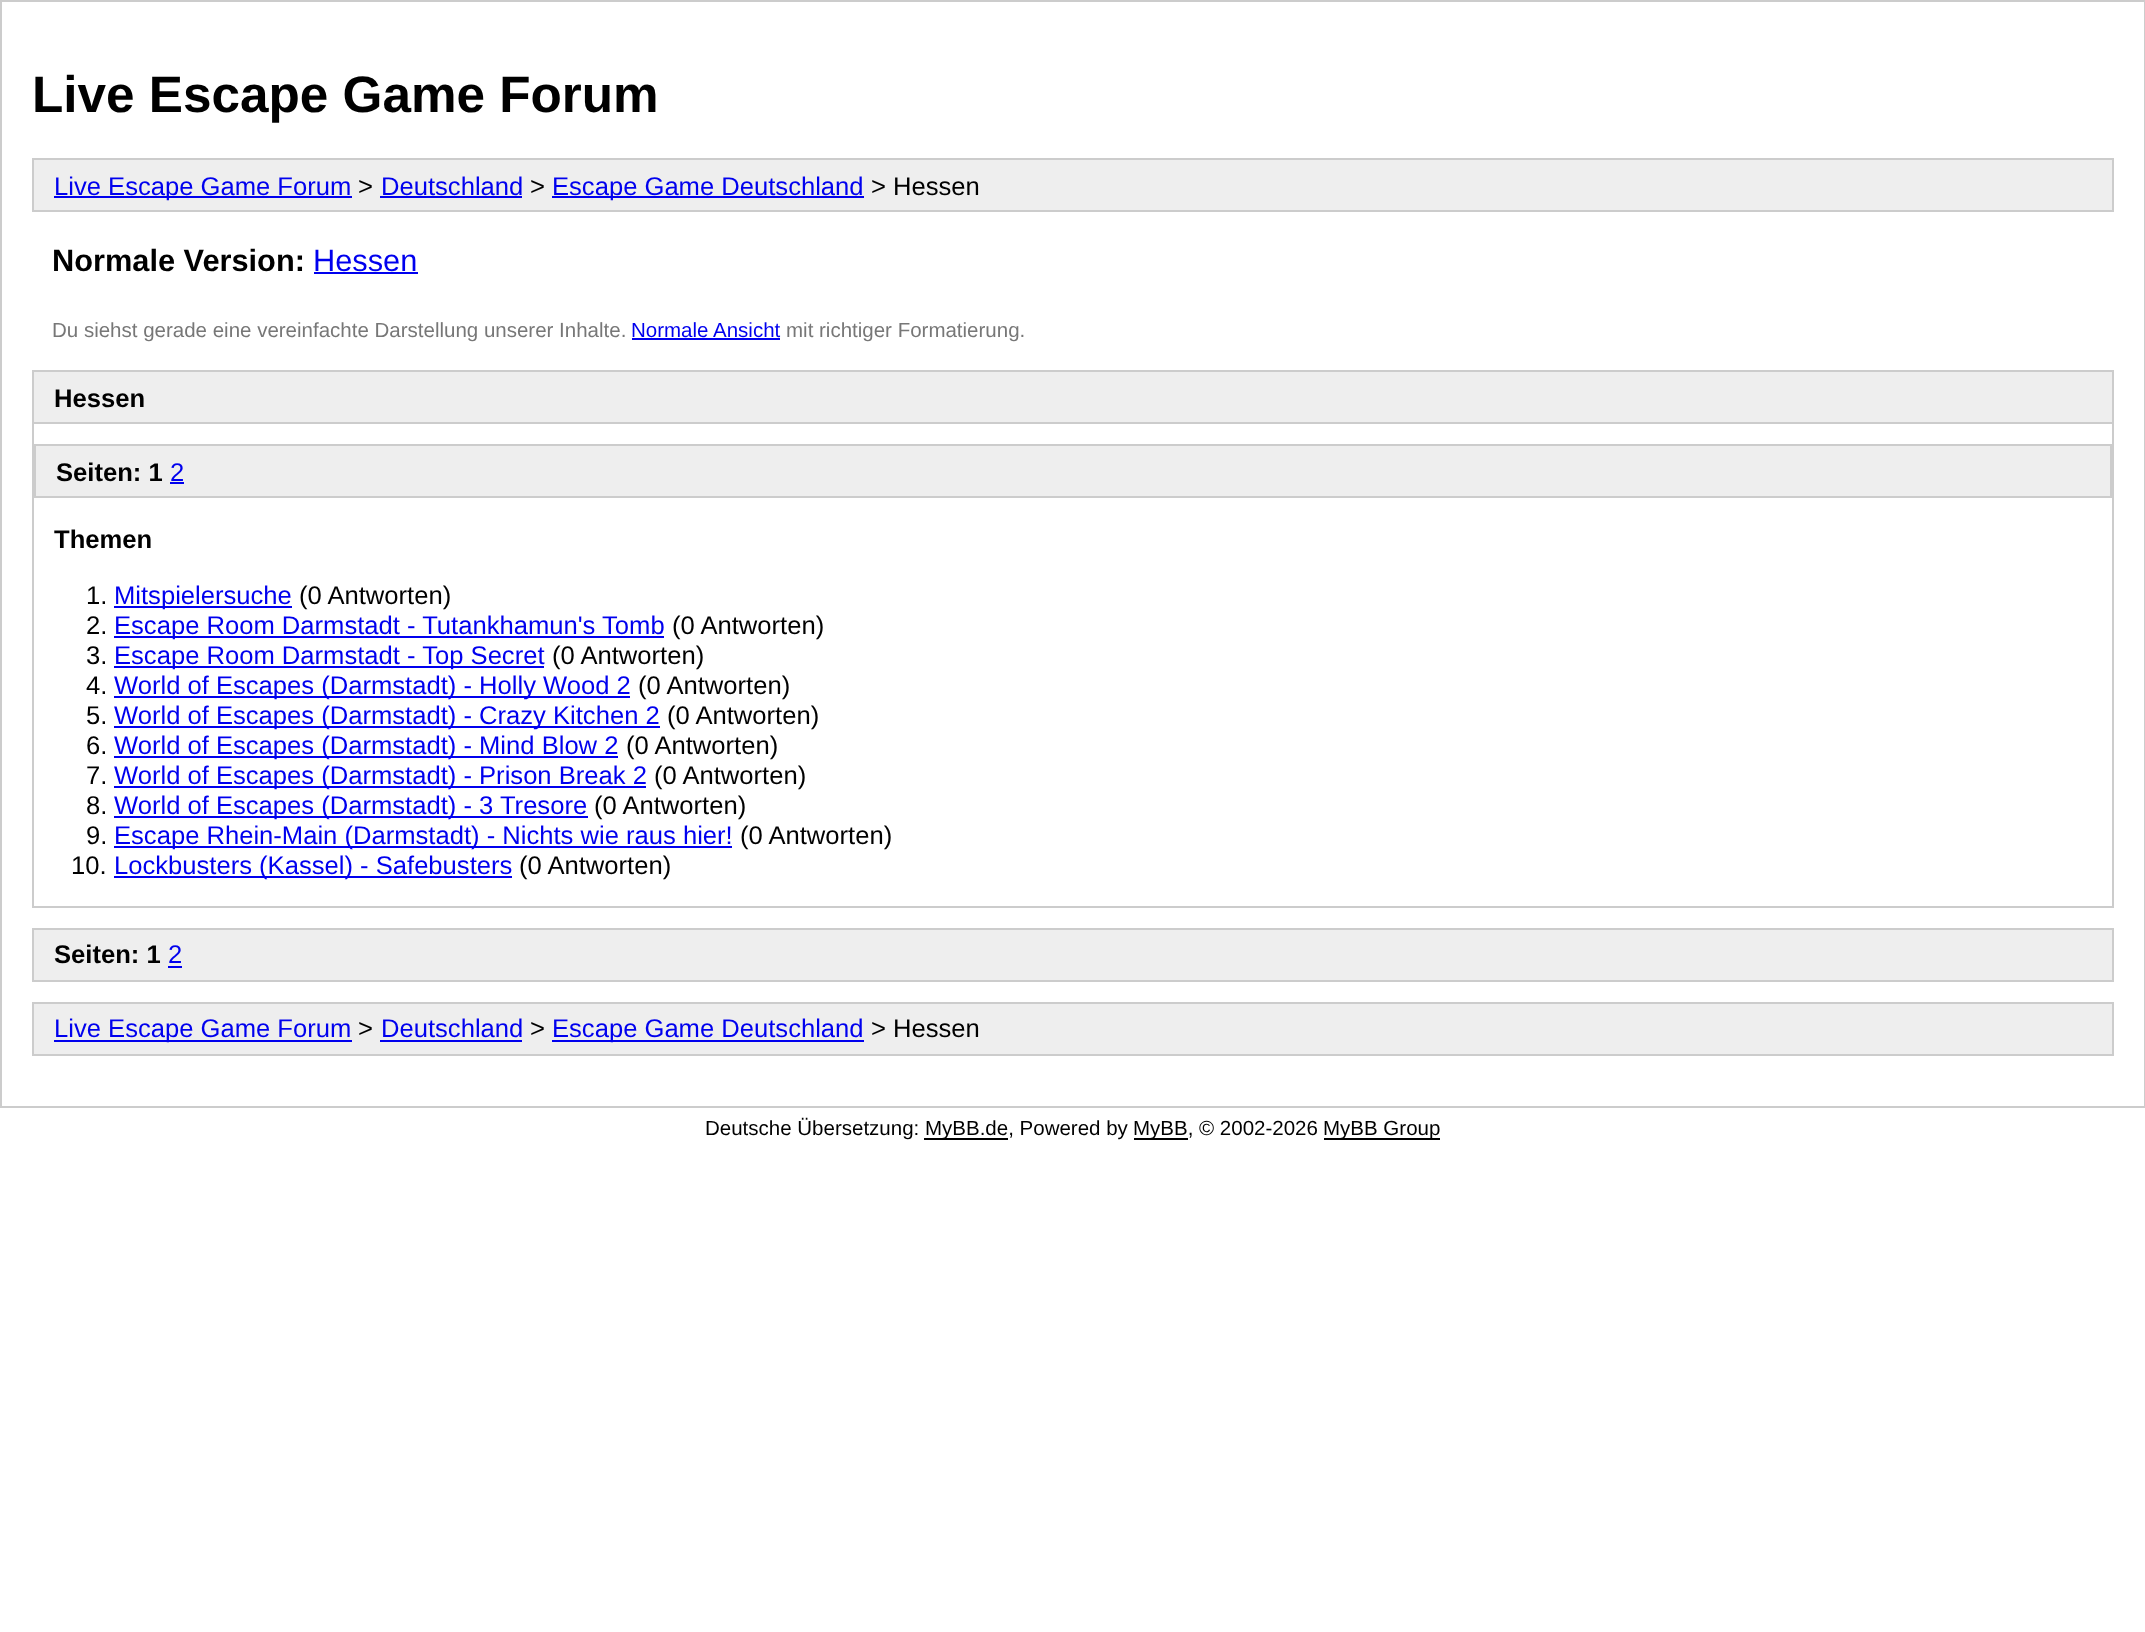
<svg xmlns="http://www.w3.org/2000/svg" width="2145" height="1632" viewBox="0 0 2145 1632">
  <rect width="100%" height="100%" fill="#fff"/>
  <path d="M1 1h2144v1106H1z" fill="none" stroke="#ccc" stroke-width="2"/>
  <path d="M33 159h2080v52H33z" fill="#eee" stroke="#ccc" stroke-width="2"/>
  <path d="M54 196h298v2H54z" fill="#00e"/>
  <path d="M380 196h142v2H380z" fill="#00e"/>
  <path d="M552 196h312v2H552z" fill="#00e"/>
  <path d="M314 272h104v2H314z" fill="#00e"/>
  <path d="M632 338h148v2H632z" fill="#00e"/>
  <path d="M33 371h2080v536H33z" fill="none" stroke="#ccc" stroke-width="2"/>
  <path d="M34 372h2078v50H34z" fill="#eee"/>
  <path d="M34 422h2078v2H34z" fill="#ccc"/>
  <path d="M35 445h2076v52H35z" fill="#eee" stroke="#ccc" stroke-width="2"/>
  <path d="M170 482h14v2H170z" fill="#00e"/>
  <path d="M114 606h178v2H114z" fill="#00e"/>
  <path d="M114 636h550v2H114z" fill="#00e"/>
  <path d="M114 666h430v2H114z" fill="#00e"/>
  <path d="M114 696h516v2H114z" fill="#00e"/>
  <path d="M114 726h546v2H114z" fill="#00e"/>
  <path d="M114 756h504v2H114z" fill="#00e"/>
  <path d="M114 786h532v2H114z" fill="#00e"/>
  <path d="M114 816h474v2H114z" fill="#00e"/>
  <path d="M114 846h618v2H114z" fill="#00e"/>
  <path d="M114 876h398v2H114z" fill="#00e"/>
  <path d="M33 929h2080v52H33z" fill="#eee" stroke="#ccc" stroke-width="2"/>
  <path d="M168 966h14v2H168z" fill="#00e"/>
  <path d="M33 1003h2080v52H33z" fill="#eee" stroke="#ccc" stroke-width="2"/>
  <path d="M54 1040h298v2H54z" fill="#00e"/>
  <path d="M380 1040h142v2H380z" fill="#00e"/>
  <path d="M552 1040h312v2H552z" fill="#00e"/>
  <path d="M924 1138h84v2H924z" fill="#000"/>
  <path d="M1134 1138h54v2H1134z" fill="#000"/>
  <path d="M1324 1138h116v2H1324z" fill="#000"/>
  <text x="32" y="112" font-family="Liberation Sans" font-size="51.25" font-weight="bold" fill="#000">Live Escape Game Forum</text>
  <text x="54" y="195" font-family="Liberation Sans" font-size="25.6" fill="#00e">Live Escape Game Forum</text>
  <text x="358" y="195" font-family="Liberation Sans" font-size="25.6" fill="#000">&gt;</text>
  <text x="381" y="195" font-family="Liberation Sans" font-size="25.6" fill="#00e">Deutschland</text>
  <text x="530" y="195" font-family="Liberation Sans" font-size="25.6" fill="#000">&gt;</text>
  <text x="552" y="195" font-family="Liberation Sans" font-size="25.6" fill="#00e">Escape Game Deutschland</text>
  <text x="871" y="195" font-family="Liberation Sans" font-size="25.6" fill="#000">&gt; Hessen</text>
  <text x="52" y="271" font-family="Liberation Sans" font-size="30.75" font-weight="bold" fill="#000">Normale Version:</text>
  <text x="313" y="271" font-family="Liberation Sans" font-size="30.75" fill="#00e">Hessen</text>
  <text x="52" y="337" font-family="Liberation Sans" font-size="20.5" fill="#777">Du siehst gerade eine vereinfachte Darstellung unserer Inhalte.</text>
  <text x="631" y="337" font-family="Liberation Sans" font-size="20.5" fill="#00e">Normale Ansicht</text>
  <text x="786" y="337" font-family="Liberation Sans" font-size="20.5" fill="#777">mit richtiger Formatierung.</text>
  <g font-family="Liberation Sans" font-size="25.6" font-weight="bold" fill="#000">
    <text x="54" y="407">Hessen</text>
    <text x="56" y="481">Seiten: 1</text>
  </g>
  <text x="170" y="481" font-family="Liberation Sans" font-size="25.6" fill="#00e">2</text>
  <text x="54" y="548" font-family="Liberation Sans" font-size="25.6" font-weight="bold" fill="#000">Themen</text>
  <text x="86" y="604" font-family="Liberation Sans" font-size="25.6" fill="#000">1.</text>
  <text x="114" y="604" font-family="Liberation Sans" font-size="25.6" fill="#00e">Mitspielersuche</text>
  <g font-family="Liberation Sans" font-size="25.6" fill="#000">
    <text x="299" y="604">(0 Antworten)</text>
    <text x="86" y="634">2.</text>
  </g>
  <text x="114" y="634" font-family="Liberation Sans" font-size="25.6" fill="#00e">Escape Room Darmstadt - Tutankhamun's Tomb</text>
  <g font-family="Liberation Sans" font-size="25.6" fill="#000">
    <text x="672" y="634">(0 Antworten)</text>
    <text x="86" y="664">3.</text>
  </g>
  <text x="114" y="664" font-family="Liberation Sans" font-size="25.6" fill="#00e">Escape Room Darmstadt - Top Secret</text>
  <g font-family="Liberation Sans" font-size="25.6" fill="#000">
    <text x="552" y="664">(0 Antworten)</text>
    <text x="86" y="694">4.</text>
  </g>
  <text x="114" y="694" font-family="Liberation Sans" font-size="25.6" fill="#00e">World of Escapes (Darmstadt) - Holly Wood 2</text>
  <g font-family="Liberation Sans" font-size="25.6" fill="#000">
    <text x="638" y="694">(0 Antworten)</text>
    <text x="86" y="724">5.</text>
  </g>
  <text x="114" y="724" font-family="Liberation Sans" font-size="25.6" fill="#00e">World of Escapes (Darmstadt) - Crazy Kitchen 2</text>
  <g font-family="Liberation Sans" font-size="25.6" fill="#000">
    <text x="667" y="724">(0 Antworten)</text>
    <text x="86" y="754">6.</text>
  </g>
  <text x="114" y="754" font-family="Liberation Sans" font-size="25.6" fill="#00e">World of Escapes (Darmstadt) - Mind Blow 2</text>
  <g font-family="Liberation Sans" font-size="25.6" fill="#000">
    <text x="626" y="754">(0 Antworten)</text>
    <text x="86" y="784">7.</text>
  </g>
  <text x="114" y="784" font-family="Liberation Sans" font-size="25.6" fill="#00e">World of Escapes (Darmstadt) - Prison Break 2</text>
  <g font-family="Liberation Sans" font-size="25.6" fill="#000">
    <text x="654" y="784">(0 Antworten)</text>
    <text x="86" y="814">8.</text>
  </g>
  <text x="114" y="814" font-family="Liberation Sans" font-size="25.6" fill="#00e">World of Escapes (Darmstadt) - 3 Tresore</text>
  <g font-family="Liberation Sans" font-size="25.6" fill="#000">
    <text x="594" y="814">(0 Antworten)</text>
    <text x="86" y="844">9.</text>
  </g>
  <text x="114" y="844" font-family="Liberation Sans" font-size="25.6" fill="#00e">Escape Rhein-Main (Darmstadt) - Nichts wie raus hier!</text>
  <g font-family="Liberation Sans" font-size="25.6" fill="#000">
    <text x="740" y="844">(0 Antworten)</text>
    <text x="71" y="874">10.</text>
  </g>
  <text x="114" y="874" font-family="Liberation Sans" font-size="25.6" fill="#00e">Lockbusters (Kassel) - Safebusters</text>
  <text x="519" y="874" font-family="Liberation Sans" font-size="25.6" fill="#000">(0 Antworten)</text>
  <text x="54" y="963" font-family="Liberation Sans" font-size="25.6" font-weight="bold" fill="#000">Seiten: 1</text>
  <g font-family="Liberation Sans" font-size="25.6" fill="#00e">
    <text x="168" y="963">2</text>
    <text x="54" y="1037">Live Escape Game Forum</text>
  </g>
  <text x="358" y="1037" font-family="Liberation Sans" font-size="25.6" fill="#000">&gt;</text>
  <text x="381" y="1037" font-family="Liberation Sans" font-size="25.6" fill="#00e">Deutschland</text>
  <text x="530" y="1037" font-family="Liberation Sans" font-size="25.6" fill="#000">&gt;</text>
  <text x="552" y="1037" font-family="Liberation Sans" font-size="25.6" fill="#00e">Escape Game Deutschland</text>
  <text x="871" y="1037" font-family="Liberation Sans" font-size="25.6" fill="#000">&gt; Hessen</text>
  <g font-family="Liberation Sans" font-size="20.5" fill="#000">
    <text x="705" y="1135">Deutsche Übersetzung:</text>
    <text x="925" y="1135">MyBB.de, Powered by</text>
    <text x="1133" y="1135">MyBB, © 2002-2026</text>
    <text x="1323" y="1135">MyBB Group</text>
  </g>
</svg>
